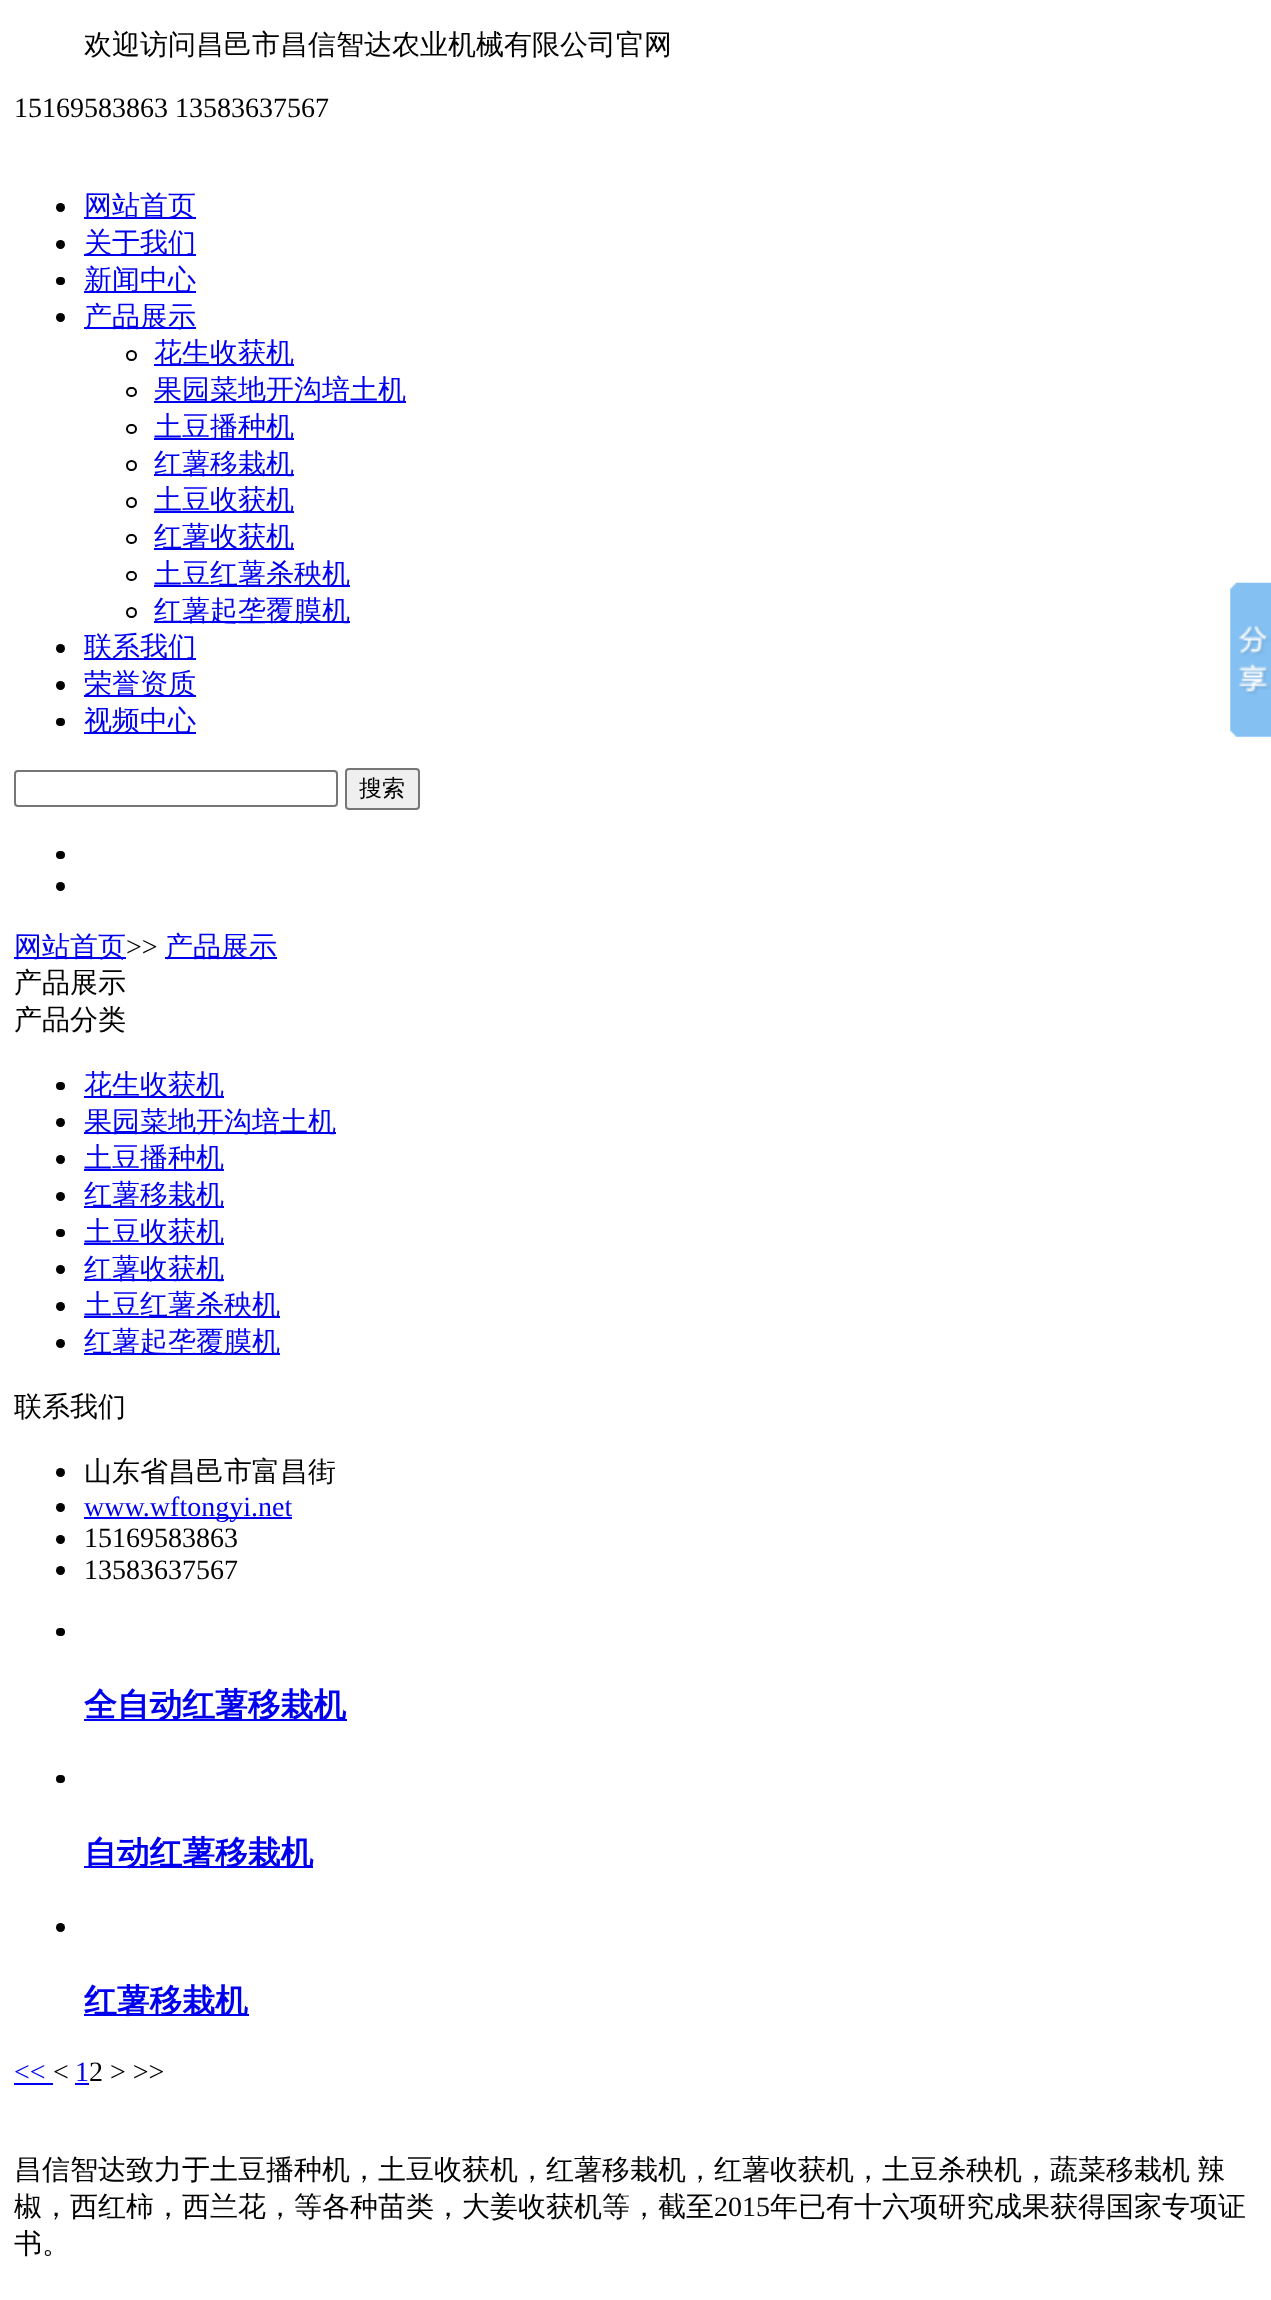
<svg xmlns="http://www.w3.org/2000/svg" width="1271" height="2300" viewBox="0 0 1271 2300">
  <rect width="100%" height="100%" fill="#fff"/>
  <circle cx="60.5" cy="207.5" r="4.5" fill="#000"/>
  <path d="M84 217h112v2H84z" fill="#00e"/>
  <circle cx="60.5" cy="244.5" r="4.5" fill="#000"/>
  <path d="M84 254h112v2H84z" fill="#00e"/>
  <rect x="56" y="277" width="9" height="8" rx="4" fill="#000"/>
  <path d="M84 291h112v2H84z" fill="#00e"/>
  <circle cx="60.5" cy="317.5" r="4.5" fill="#000"/>
  <path d="M84 327h112v2H84z" fill="#00e"/>
  <circle cx="131.5" cy="355.5" r="4.5" fill="none" stroke="#000" stroke-width="2"/>
  <path d="M154 364h140v2H154z" fill="#00e"/>
  <rect x="127" y="388" width="9" height="8" rx="4" fill="none" stroke="#000" stroke-width="2"/>
  <path d="M154 401h252v2H154z" fill="#00e"/>
  <rect x="127" y="425" width="9" height="8" rx="4" fill="none" stroke="#000" stroke-width="2"/>
  <path d="M154 438h140v2H154z" fill="#00e"/>
  <circle cx="131.5" cy="465.5" r="4.5" fill="none" stroke="#000" stroke-width="2"/>
  <path d="M154 474h140v2H154z" fill="#00e"/>
  <circle cx="131.5" cy="502.5" r="4.5" fill="none" stroke="#000" stroke-width="2"/>
  <path d="M154 511h140v2H154z" fill="#00e"/>
  <rect x="127" y="535" width="9" height="8" rx="4" fill="none" stroke="#000" stroke-width="2"/>
  <path d="M154 548h140v2H154z" fill="#00e"/>
  <rect x="127" y="572" width="9" height="8" rx="4" fill="none" stroke="#000" stroke-width="2"/>
  <path d="M154 585h196v2H154z" fill="#00e"/>
  <circle cx="131.5" cy="612.5" r="4.5" fill="none" stroke="#000" stroke-width="2"/>
  <path d="M154 621h196v2H154z" fill="#00e"/>
  <circle cx="60.5" cy="648.5" r="4.5" fill="#000"/>
  <path d="M84 658h112v2H84z" fill="#00e"/>
  <circle cx="60.5" cy="685.5" r="4.5" fill="#000"/>
  <path d="M84 695h112v2H84z" fill="#00e"/>
  <rect x="56" y="718" width="9" height="8" rx="4" fill="#000"/>
  <path d="M84 732h112v2H84z" fill="#00e"/>
  <rect x="15" y="771" width="322" height="35" rx="3" fill="none" stroke="#767676" stroke-width="2"/>
  <rect x="346" y="769" width="73" height="40" rx="3" fill="#efefef" stroke="#767676" stroke-width="2"/>
  <image x="1230" y="582" width="41" height="155" href="img/1.png"/>
  <rect x="56" y="851" width="9" height="8" rx="4" fill="#000"/>
  <circle cx="60.5" cy="886.5" r="4.5" fill="#000"/>
  <path d="M14 957h112v2H14z" fill="#00e"/>
  <path d="M165 957h112v2H165z" fill="#00e"/>
  <rect x="56" y="1082" width="9" height="8" rx="4" fill="#000"/>
  <path d="M84 1096h140v2H84z" fill="#00e"/>
  <circle cx="60.5" cy="1122.5" r="4.5" fill="#000"/>
  <path d="M84 1132h252v2H84z" fill="#00e"/>
  <circle cx="60.5" cy="1159.5" r="4.5" fill="#000"/>
  <path d="M84 1169h140v2H84z" fill="#00e"/>
  <circle cx="60.5" cy="1196.5" r="4.5" fill="#000"/>
  <path d="M84 1206h140v2H84z" fill="#00e"/>
  <rect x="56" y="1229" width="9" height="8" rx="4" fill="#000"/>
  <path d="M84 1243h140v2H84z" fill="#00e"/>
  <circle cx="60.5" cy="1269.5" r="4.5" fill="#000"/>
  <path d="M84 1279h140v2H84z" fill="#00e"/>
  <circle cx="60.5" cy="1306.5" r="4.5" fill="#000"/>
  <path d="M84 1316h196v2H84z" fill="#00e"/>
  <circle cx="60.5" cy="1343.5" r="4.5" fill="#000"/>
  <path d="M84 1353h196v2H84z" fill="#00e"/>
  <circle cx="60.5" cy="1472.5" r="4.5" fill="#000"/>
  <circle cx="60.5" cy="1507.5" r="4.5" fill="#000"/>
  <path d="M84 1517h208v2H84z" fill="#00e"/>
  <circle cx="60.5" cy="1539.5" r="4.5" fill="#000"/>
  <circle cx="60.5" cy="1570.5" r="4.5" fill="#000"/>
  <rect x="56" y="1628" width="9" height="8" rx="4" fill="#000"/>
  <path d="M84 1719h263v2H84z" fill="#00e"/>
  <rect x="56" y="1775" width="9" height="8" rx="4" fill="#000"/>
  <path d="M84 1866h229v2H84z" fill="#00e"/>
  <circle cx="60.5" cy="1927.5" r="4.5" fill="#000"/>
  <path d="M84 2014h165v2H84z" fill="#00e"/>
  <path d="M14 2083h39v2H14z" fill="#00e"/>
  <path d="M75 2083h14v2H75z" fill="#00e"/>
  <text x="84" y="54" font-family="WenQuanYi Zen Hei" font-size="28" font-weight="500" fill="#000">欢迎访问昌邑市昌信智达农业机械有限公司官网</text>
  <text x="14" y="117" font-family="Liberation Serif" font-size="28" fill="#000">15169583863 13583637567</text>
  <g font-family="WenQuanYi Zen Hei" font-size="28" font-weight="500" fill="#00e">
    <text x="84" y="215">网站首页</text>
    <text x="84" y="252">关于我们</text>
    <text x="84" y="289">新闻中心</text>
    <text x="84" y="326">产品展示</text>
    <text x="154" y="362">花生收获机</text>
    <text x="154" y="399">果园菜地开沟培土机</text>
    <text x="154" y="436">土豆播种机</text>
    <text x="154" y="473">红薯移栽机</text>
    <text x="154" y="509">土豆收获机</text>
    <text x="154" y="546">红薯收获机</text>
    <text x="154" y="583">土豆红薯杀秧机</text>
    <text x="154" y="620">红薯起垄覆膜机</text>
    <text x="84" y="656">联系我们</text>
    <text x="84" y="693">荣誉资质</text>
    <text x="84" y="730">视频中心</text>
  </g>
  <text x="359" y="796" font-family="WenQuanYi Zen Hei" font-size="23" font-weight="500" fill="#000">搜索</text>
  <text x="14" y="956" font-family="WenQuanYi Zen Hei" font-size="28" font-weight="500" fill="#00e">网站首页</text>
  <text x="126" y="956" font-family="Liberation Serif" font-size="28" fill="#000">&gt;&gt;</text>
  <text x="165" y="956" font-family="WenQuanYi Zen Hei" font-size="28" font-weight="500" fill="#00e">产品展示</text>
  <g font-family="WenQuanYi Zen Hei" font-size="28" font-weight="500" fill="#000">
    <text x="14" y="992">产品展示</text>
    <text x="14" y="1029">产品分类</text>
  </g>
  <g font-family="WenQuanYi Zen Hei" font-size="28" font-weight="500" fill="#00e">
    <text x="84" y="1094">花生收获机</text>
    <text x="84" y="1131">果园菜地开沟培土机</text>
    <text x="84" y="1167">土豆播种机</text>
    <text x="84" y="1204">红薯移栽机</text>
    <text x="84" y="1241">土豆收获机</text>
    <text x="84" y="1278">红薯收获机</text>
    <text x="84" y="1314">土豆红薯杀秧机</text>
    <text x="84" y="1351">红薯起垄覆膜机</text>
  </g>
  <g font-family="WenQuanYi Zen Hei" font-size="28" font-weight="500" fill="#000">
    <text x="14" y="1416">联系我们</text>
    <text x="84" y="1481">山东省昌邑市富昌街</text>
  </g>
  <text x="84" y="1516" font-family="Liberation Serif" font-size="28" fill="#00e">www.wftongyi.net</text>
  <g font-family="Liberation Serif" font-size="28" fill="#000">
    <text x="84" y="1547">15169583863</text>
    <text x="84" y="1579">13583637567</text>
  </g>
  <g font-family="WenQuanYi Zen Hei" font-size="32.75" font-weight="bold" fill="#00e">
    <text x="84" y="1716">全自动红薯移栽机</text>
    <text x="84" y="1864">自动红薯移栽机</text>
    <text x="84" y="2012">红薯移栽机</text>
  </g>
  <text x="14" y="2081" font-family="Liberation Serif" font-size="28" fill="#00e">&lt;&lt;</text>
  <text x="53" y="2081" font-family="Liberation Serif" font-size="28" fill="#000">&lt;</text>
  <text x="75" y="2081" font-family="Liberation Serif" font-size="28" fill="#00e">1</text>
  <text x="89" y="2081" font-family="Liberation Serif" font-size="28" fill="#000">2 &gt; &gt;&gt;</text>
  <g font-family="WenQuanYi Zen Hei" font-size="28" font-weight="500" fill="#000">
    <text x="14" y="2179" word-spacing="-1">昌信智达致力于土豆播种机，土豆收获机，红薯移栽机，红薯收获机，土豆杀秧机，蔬菜移栽机 辣</text>
    <text x="14" y="2216">椒，西红柿，西兰花，等各种苗类，大姜收获机等，截至</text>
  </g>
  <text x="714" y="2216" font-family="Liberation Serif" font-size="28" fill="#000">2015</text>
  <g font-family="WenQuanYi Zen Hei" font-size="28" font-weight="500" fill="#000">
    <text x="770" y="2216">年已有十六项研究成果获得国家专项证</text>
    <text x="14" y="2253">书。</text>
  </g>
</svg>
